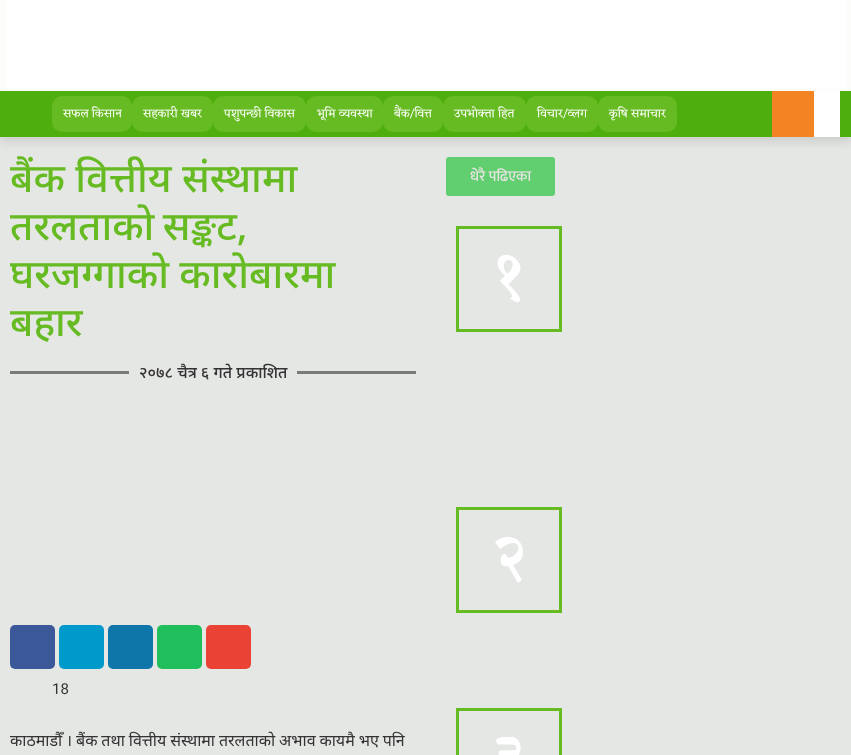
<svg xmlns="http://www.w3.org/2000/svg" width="851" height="755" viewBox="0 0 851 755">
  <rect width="100%" height="100%" fill="#e5e7e4"/>
  <path d="M0 0h851v91H0z" fill="#fcfcfb"/>
  <path d="M6 0h840v91H6z" fill="#fff"/>
  <rect x="446" y="157" width="109" height="39" rx="3" fill="#61ce70"/>
  <path d="M0 96h851v46H0z" fill="#0000001a" filter="blur(5px)"/>
  <path d="M0 91h851v46H0z" fill="#4dae0e"/>
  <rect x="52" y="96" width="80" height="36" rx="10" fill="#67bb22"/>
  <rect x="132" y="96" width="81" height="36" rx="10" fill="#67bb22"/>
  <rect x="213" y="96" width="93" height="36" rx="10" fill="#67bb22"/>
  <rect x="306" y="96" width="77" height="36" rx="10" fill="#67bb22"/>
  <rect x="383" y="96" width="60" height="36" rx="10" fill="#67bb22"/>
  <rect x="443" y="96" width="83" height="36" rx="10" fill="#67bb22"/>
  <rect x="526" y="96" width="72" height="36" rx="10" fill="#67bb22"/>
  <rect x="598" y="96" width="79" height="36" rx="10" fill="#67bb22"/>
  <path d="M772 91h42v46H772z" fill="#f48423"/>
  <path d="M814 91h26v46H814z" fill="#fff"/>
  <path d="M10 371h119v3H10z" fill="#7a7a7a"/>
  <path d="M297 371h119v3H297z" fill="#7a7a7a"/>
  <rect x="10" y="625" width="45" height="44" rx="5" fill="#3b5998"/>
  <rect x="59" y="625" width="45" height="44" rx="5" fill="#09c"/>
  <rect x="108" y="625" width="45" height="44" rx="5" fill="#0e76a8"/>
  <rect x="157" y="625" width="45" height="44" rx="5" fill="#21be5c"/>
  <rect x="206" y="625" width="45" height="44" rx="5" fill="#ea4335"/>
  <path d="M457.5 227.5h103v103H457.5z" fill="none" stroke="#67bb22" stroke-width="3"/>
  <image x="497" y="255" width="24" height="48" href="img/1.png"/>
  <path d="M457.5 508.5h103v103H457.5z" fill="none" stroke="#67bb22" stroke-width="3"/>
  <path d="M523 552C523 559 519 563 513 565L522 580L518 583L508 566C494 569 503 544 508 558C525 554 520 533 500 549L495 542C505 533 523 536 523 552Z" fill="#fff"/>
  <path d="M457.5 709.5h103v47H457.5z" fill="none" stroke="#67bb22" stroke-width="3"/>
  <image x="495" y="737" width="26" height="18" href="img/2.png"/>
  <g font-family="Eczar" font-size="12" fill="#fff">
    <text x="63" y="117">सफल किसान</text>
    <text x="143" y="117">सहकारी खबर</text>
    <text x="224" y="117">पशुपन्छी विकास</text>
    <text x="317" y="117">भूमि व्यवस्था</text>
    <text x="394" y="117">बैंक/वित्त</text>
    <text x="454" y="117">उपभोक्ता हित</text>
    <text x="537" y="117">विचार/व्लग</text>
    <text x="609" y="117">कृषि समाचार</text>
  </g>
  <g font-family="Noto Sans" font-size="40" font-weight="500" fill="#67bb22">
    <text x="10" y="192">बैंक वित्तीय संस्थामा</text>
    <text x="10" y="240" word-spacing="-2">तरलताको सङ्कट,</text>
    <text x="10" y="288">घरजग्गाको कारोबारमा</text>
    <text x="10" y="336">बहार</text>
  </g>
  <text x="139" y="378" font-family="Noto Sans" font-size="16" font-weight="500" fill="#333">२०७८ चैत्र ६ गते प्रकाशित</text>
  <text x="52" y="694" font-family="Roboto" font-size="15" fill="#333">18</text>
  <text x="10" y="746" word-spacing="-0.25" font-family="Noto Sans" font-size="16" fill="#333">काठमाडौँ । बैंक तथा वित्तीय संस्थामा तरलताको अभाव कायमै भए पनि</text>
  <text x="470" y="181" font-family="Mukta" font-size="15" font-weight="500" fill="#e8e4e4">धेरै पढिएका</text>
</svg>
